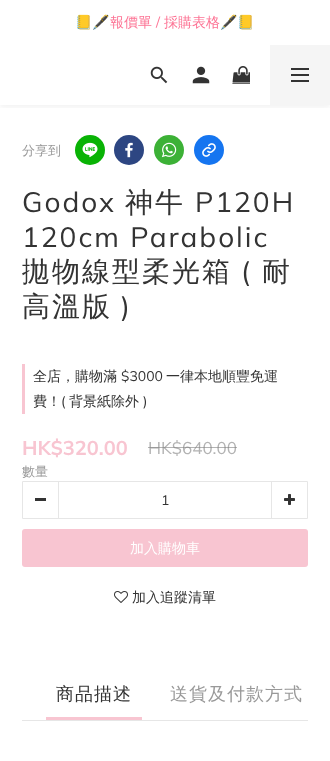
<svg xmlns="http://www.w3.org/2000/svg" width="330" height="761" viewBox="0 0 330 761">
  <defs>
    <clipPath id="clip1"><path d="M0 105h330v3H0z"/></clipPath>
  </defs>
  <rect width="100%" height="100%" fill="#fff"/>
  <g clip-path="url(#clip1)">
    <path d="M0 47h330v60H0z" fill="#0000000f" filter="blur(3px)"/>
  </g>
  <image x="150" y="66" width="18" height="18" href="img/1.png"/>
  <image x="192" y="66" width="18" height="18" href="img/2.png"/>
  <image x="232" y="66" width="18" height="18" href="img/3.png"/>
  <path d="M270 45h60v60H270z" fill="#f5f5f5"/>
  <path d="M291 74h18v2H291z" fill="#333"/>
  <path d="M291 68h18v2H291z" fill="#333"/>
  <path d="M291 80h18v2H291z" fill="#333"/>
  <circle cx="90" cy="150" r="15" fill="#09b305"/>
  <image x="82" y="142" width="16" height="16" href="img/4.png"/>
  <circle cx="129" cy="150" r="15" fill="#2d4682"/>
  <image x="125" y="142" width="8" height="16" href="img/5.png"/>
  <circle cx="169" cy="150" r="15" fill="#3cb136"/>
  <image x="161" y="142" width="16" height="16" href="img/6.png"/>
  <circle cx="209" cy="150" r="15" fill="#1575f0"/>
  <image x="202" y="143" width="14" height="14" href="img/7.png"/>
  <path d="M22 364h3v50H22z" fill="#f8c5d1"/>
  <path d="M58 481h214v1H58z" fill="#e6e6e6"/>
  <path d="M58 518h214v1H58z" fill="#e6e6e6"/>
  <path d="M22.5 481.5h36v37H22.5z" fill="none" stroke="#e6e6e6"/>
  <path d="M35 498h11v3H35z" fill="#333"/>
  <path d="M271.5 481.5h36v37H271.5z" fill="none" stroke="#e6e6e6"/>
  <image x="284" y="494" width="11" height="11" href="img/8.png"/>
  <rect x="22" y="529" width="286" height="38" rx="3" fill="#f8c5d1"/>
  <image x="114" y="591" width="14" height="12" href="img/9.png"/>
  <path d="M22 720h286v1H22z" fill="#e6e6e6"/>
  <path d="M46 717h96v3H46z" fill="#f8c5d1"/>
  <text x="75" y="27" font-family="Noto Color Emoji" font-size="14" fill="#fd7495">📒🖋️</text>
  <text x="110" y="27" font-family="WenQuanYi Zen Hei" font-size="14" font-weight="500" fill="#fd7495">報價單</text>
  <text x="156" y="27" font-family="Mulish" font-size="14" fill="#fd7495">/</text>
  <text x="164" y="27" font-family="WenQuanYi Zen Hei" font-size="14" font-weight="500" fill="#fd7495">採購表格</text>
  <text x="220" y="27" font-family="Noto Color Emoji" font-size="14" fill="#fd7495">🖋️📒</text>
  <text x="22" y="155" font-family="WenQuanYi Zen Hei" font-size="13" font-weight="500" fill="#999">分享到</text>
  <text x="22" y="212" font-family="Mulish" font-size="28" letter-spacing="2" fill="#333">Godox</text>
  <text x="125" y="212" font-family="WenQuanYi Zen Hei" font-size="28" font-weight="500" letter-spacing="2" fill="#333">神牛</text>
  <g font-family="Mulish" font-size="28" letter-spacing="2" fill="#333">
    <text x="195" y="212">P120H</text>
    <text x="22" y="247">120cm Parabolic</text>
  </g>
  <text x="22" y="281" font-family="WenQuanYi Zen Hei" font-size="28" font-weight="500" letter-spacing="2" fill="#333">拋物線型柔光箱</text>
  <text x="241" y="281" font-family="Mulish" font-size="28" letter-spacing="2" fill="#333">(</text>
  <g font-family="WenQuanYi Zen Hei" font-size="28" font-weight="500" letter-spacing="2" fill="#333">
    <text x="262" y="281">耐</text>
    <text x="22" y="316">高溫版</text>
  </g>
  <text x="121" y="316" font-family="Mulish" font-size="28" letter-spacing="2" fill="#333">)</text>
  <text x="33" y="381" font-family="WenQuanYi Zen Hei" font-size="14" font-weight="500" fill="#333">全店，購物滿</text>
  <text x="121" y="381" font-family="Mulish" font-size="14" fill="#333">$3000</text>
  <g font-family="WenQuanYi Zen Hei" font-size="14" font-weight="500" fill="#333">
    <text x="166" y="381">一律本地順豐免運</text>
    <text x="33" y="406">費！</text>
  </g>
  <text x="61" y="406" font-family="Mulish" font-size="14" fill="#333">(</text>
  <text x="69" y="406" font-family="WenQuanYi Zen Hei" font-size="14" font-weight="500" fill="#333">背景紙除外</text>
  <text x="143" y="406" font-family="Mulish" font-size="14" fill="#333">)</text>
  <text x="22" y="455" font-family="Mulish" font-size="20" font-weight="bold" fill="#f8c5d1">HK$320.00</text>
  <text x="148" y="454" font-family="Mulish" font-size="17" fill="#b3b3b3">HK$640.00</text>
  <path d="M148 447h89v1H148z" fill="#80808099"/>
  <text x="22" y="476" font-family="WenQuanYi Zen Hei" font-size="13" font-weight="500" fill="#999">數量</text>
  <text x="161" y="505" font-family="Mulish" font-size="14" fill="#333">1</text>
  <text x="130" y="553" font-family="WenQuanYi Zen Hei" font-size="14" font-weight="500" fill="#fff">加入購物車</text>
  <text x="132" y="602" font-family="WenQuanYi Zen Hei" font-size="14" font-weight="500" fill="#333">加入追蹤清單</text>
  <text x="56" y="700" font-family="WenQuanYi Zen Hei" font-size="18" font-weight="500" letter-spacing="1" fill="#333">商品描述</text>
  <text x="170" y="700" font-family="WenQuanYi Zen Hei" font-size="18" font-weight="500" letter-spacing="1" fill="#999">送貨及付款方式</text>
</svg>
